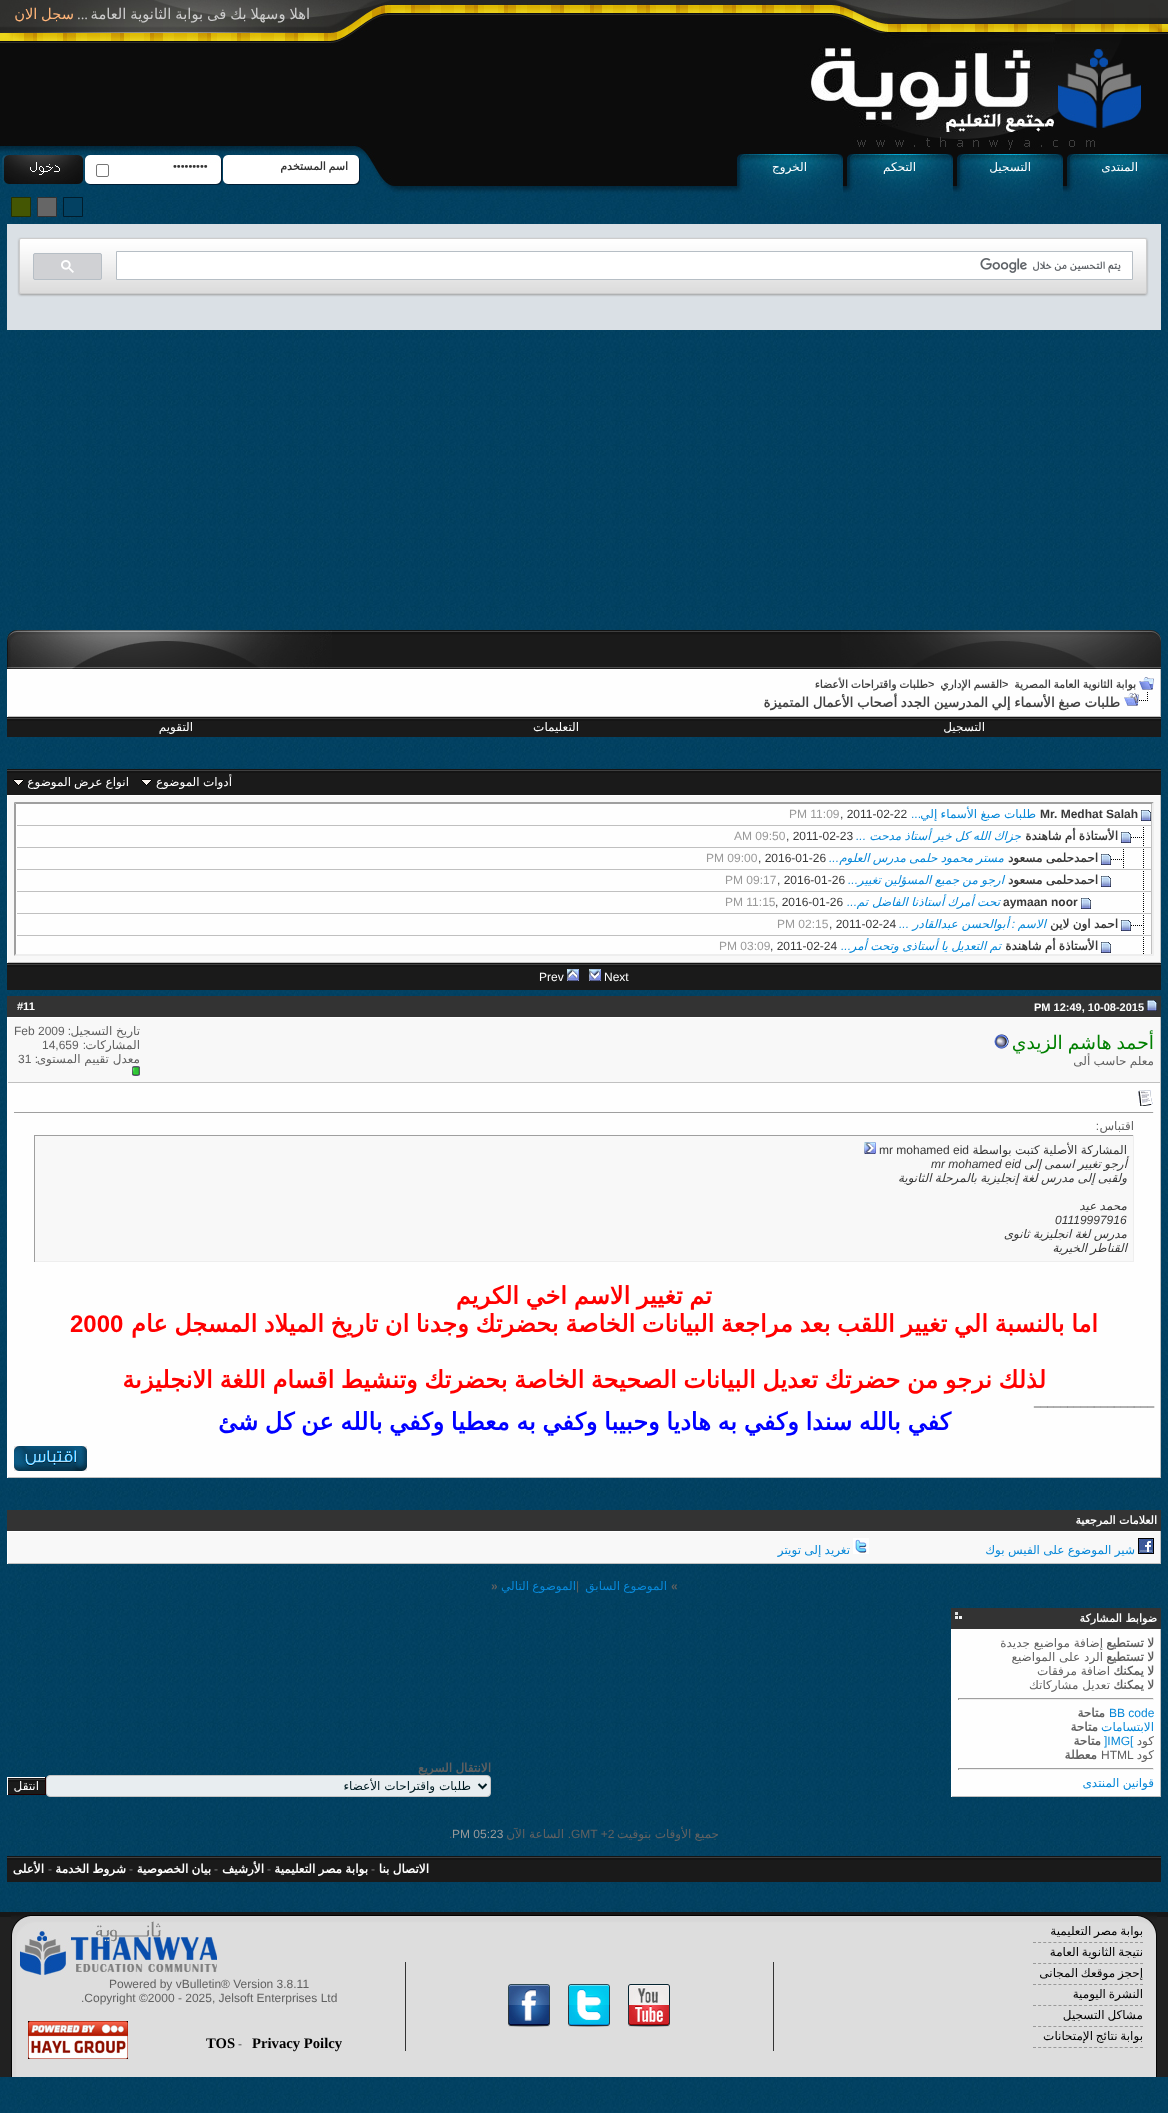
<svg xmlns="http://www.w3.org/2000/svg" width="1168" height="2113" viewBox="0 0 1168 2113">
  <rect width="100%" height="100%" fill="#fff"/>
  <image x="0" y="202" width="1168" height="1911" href="img/1.png"/>
  <image x="0" y="0" width="1168" height="202" href="img/2.png"/>
  <image x="0" y="0" width="422" height="194" href="img/3.png"/>
  <image x="796" y="0" width="372" height="150" href="img/4.png"/>
  <image x="1067" y="154" width="101" height="60" href="img/5.png"/>
  <image x="957" y="154" width="106" height="60" href="img/6.png"/>
  <image x="847" y="154" width="106" height="60" href="img/6.png"/>
  <image x="737" y="154" width="106" height="60" href="img/6.png"/>
  <image x="2" y="155" width="358" height="30" href="img/7.png"/>
  <rect x="96.5" y="164.5" width="12" height="12" rx="1.5" fill="none" stroke="#767676"/>
  <path d="M63.5 197.5h19v19H63.5z" fill="#034162" stroke="#011d2c"/>
  <path d="M37.5 197.5h19v19H37.5z" fill="#666" stroke="#333"/>
  <path d="M11.5 197.5h19v19H11.5z" fill="#445603" stroke="#263102"/>
  <path d="M7 224h1154v106H7z" fill="#dae0e5"/>
  <rect x="19" y="239" width="1128" height="56" rx="2" fill="#999" filter="blur(1px)"/>
  <image x="19" y="239" width="1128" height="55" href="img/8.png"/>
  <rect x="19.5" y="238.5" width="1127" height="55" rx="1.5" fill="none" stroke="#ccc"/>
  <path d="M116.5 251.5h1016v28H116.5z" fill="#fff" stroke="#b6bec5"/>
  <image x="980" y="258" width="141" height="15" href="img/9.png"/>
  <rect x="33.5" y="253.5" width="68" height="26" rx="1.5" fill="#d0d1d4" stroke="#b6bec5"/>
  <image x="61" y="260" width="13" height="13" href="img/10.png"/>
  <path d="M332 668h509v1H332z" fill="#1a1a1a"/>
  <image x="332" y="630" width="509" height="38" href="img/11.png"/>
  <image x="7" y="630" width="325" height="39" href="img/12.png"/>
  <image x="841" y="630" width="320" height="39" href="img/13.png"/>
  <path d="M8 669h1152v47H8z" fill="#fefefe"/>
  <path d="M1160 669h1v48H1160z" fill="#c0c0c0"/>
  <path d="M7 716h1154v1H7z" fill="#c0c0c0"/>
  <path d="M7 669h1v48H7z" fill="#fff"/>
  <image x="1139" y="677" width="15" height="13" href="img/14.png"/>
  <image x="1124" y="692" width="24" height="14" href="img/15.png"/>
  <path d="M7 721h1154v16H7z" fill="#1a1a1a"/>
  <image x="768" y="717" width="393" height="4" href="img/16.png"/>
  <image x="345" y="717" width="423" height="4" href="img/17.png"/>
  <image x="7" y="717" width="338" height="4" href="img/18.png"/>
  <path d="M7 773h1154v22H7z" fill="#1a1a1a"/>
  <image x="238" y="769" width="923" height="4" href="img/19.png"/>
  <image x="135" y="769" width="103" height="4" href="img/20.png"/>
  <image x="141" y="779" width="11" height="7" href="img/21.png"/>
  <image x="7" y="769" width="128" height="4" href="img/22.png"/>
  <image x="13" y="779" width="11" height="7" href="img/21.png"/>
  <path d="M8 796h1152v166H8z" fill="#f8f8f8"/>
  <path d="M7 795h1154v1H7z" fill="#fff"/>
  <path d="M1160 795h1v168H1160z" fill="#c0c0c0"/>
  <path d="M7 962h1154v1H7z" fill="#c0c0c0"/>
  <path d="M7 795h1v168H7z" fill="#fff"/>
  <path d="M14 802h1140v154H14z" fill="#fefefe"/>
  <path d="M14 802H1154L1152 804H16Z" fill="#9f9f9f"/>
  <path d="M1154 802V956L1152 954V804Z" fill="#eee"/>
  <path d="M1154 956H14L16 954H1152Z" fill="#eee"/>
  <path d="M14 956V802L16 804V954Z" fill="#9f9f9f"/>
  <path d="M1151 804h1v150H1151z" fill="#c0c0c0"/>
  <path d="M16 825h1136v1H16z" fill="#c0c0c0"/>
  <path d="M16 825h1v1H16z" fill="#fff"/>
  <image x="1141" y="810" width="10" height="11" href="img/23.png"/>
  <path d="M16 847h1136v1H16z" fill="#c0c0c0"/>
  <path d="M16 847h1v1H16z" fill="#fff"/>
  <image x="1131" y="827" width="13" height="19" href="img/24.png"/>
  <image x="1121" y="832" width="10" height="11" href="img/23.png"/>
  <path d="M16 869h1136v1H16z" fill="#c0c0c0"/>
  <path d="M16 869h1v1H16z" fill="#fff"/>
  <image x="1143" y="849" width="1" height="19" href="img/25.png"/>
  <image x="1111" y="849" width="13" height="19" href="img/24.png"/>
  <image x="1101" y="854" width="10" height="11" href="img/23.png"/>
  <path d="M16 891h1136v1H16z" fill="#c0c0c0"/>
  <path d="M16 891h1v1H16z" fill="#fff"/>
  <image x="1143" y="871" width="1" height="19" href="img/25.png"/>
  <image x="1101" y="876" width="10" height="11" href="img/23.png"/>
  <path d="M16 913h1136v1H16z" fill="#c0c0c0"/>
  <path d="M16 913h1v1H16z" fill="#fff"/>
  <image x="1143" y="893" width="1" height="19" href="img/25.png"/>
  <image x="1081" y="898" width="10" height="11" href="img/23.png"/>
  <path d="M16 935h1136v1H16z" fill="#c0c0c0"/>
  <path d="M16 935h1v1H16z" fill="#fff"/>
  <image x="1131" y="915" width="13" height="19" href="img/24.png"/>
  <image x="1121" y="920" width="10" height="11" href="img/23.png"/>
  <image x="1143" y="937" width="1" height="17" href="img/26.png"/>
  <image x="1101" y="942" width="10" height="11" href="img/23.png"/>
  <path d="M7 967h1154v23H7z" fill="#1a1a1a"/>
  <image x="7" y="963" width="1154" height="4" href="img/27.png"/>
  <image x="589" y="969" width="12" height="12" href="img/28.png"/>
  <image x="567" y="969" width="12" height="12" href="img/29.png"/>
  <path d="M7 996h1154v21H7z" fill="#333"/>
  <image x="1147" y="1000" width="10" height="11" href="img/30.png"/>
  <path d="M8 1018h1152v64H8z" fill="#f8f8f8"/>
  <path d="M7 1017h1154v1H7z" fill="#fff"/>
  <path d="M1160 1017h1v461H1160z" fill="#c0c0c0"/>
  <path d="M7 1082h1154v1H7z" fill="#c0c0c0"/>
  <path d="M7 1017h1v66H7z" fill="#fff"/>
  <image x="994" y="1034" width="15" height="15" href="img/31.png"/>
  <image x="132" y="1066" width="8" height="10" href="img/32.png"/>
  <path d="M8 1083h1152v394H8z" fill="#fefefe"/>
  <path d="M7 1477h1154v1H7z" fill="#c0c0c0"/>
  <path d="M7 1083h1v395H7z" fill="#fff"/>
  <image x="1138" y="1090" width="15" height="16" href="img/33.png"/>
  <path d="M14 1112h1140v1H14z" fill="#9f9f9f"/>
  <path d="M1153 1112h1v1H1153z" fill="#eee"/>
  <path d="M35 1136h1098v125H35z" fill="#f8f8f8"/>
  <path d="M34 1135h1100v1H34z" fill="#9f9f9f"/>
  <path d="M1133 1135h1v127H1133z" fill="#eee"/>
  <path d="M34 1261h1100v1H34z" fill="#eee"/>
  <path d="M34 1135h1v127H34z" fill="#9f9f9f"/>
  <image x="864" y="1142" width="12" height="12" href="img/34.png"/>
  <image x="14" y="1446" width="73" height="25" href="img/35.png"/>
  <path d="M7 1510h1154v21H7z" fill="#333"/>
  <path d="M8 1532h1152v31H8z" fill="#f8f8f8"/>
  <path d="M7 1531h1154v1H7z" fill="#fff"/>
  <path d="M1160 1531h1v33H1160z" fill="#c0c0c0"/>
  <path d="M7 1563h1154v1H7z" fill="#c0c0c0"/>
  <path d="M7 1531h1v33H7z" fill="#fff"/>
  <image x="1138" y="1538" width="16" height="16" href="img/36.png"/>
  <image x="853" y="1538" width="16" height="16" href="img/37.png"/>
  <path d="M951 1608h210v21H951z" fill="#333"/>
  <image x="955" y="1612" width="7" height="7" href="img/38.png"/>
  <path d="M952 1629h208v167H952z" fill="#fefefe"/>
  <path d="M1160 1629h1v168H1160z" fill="#c0c0c0"/>
  <path d="M951 1796h210v1H951z" fill="#c0c0c0"/>
  <path d="M951 1629h1v168H951z" fill="#fff"/>
  <path d="M958 1698h196v1H958z" fill="#9f9f9f"/>
  <path d="M1153 1698h1v2H1153z" fill="#eee"/>
  <path d="M958 1699h196v1H958z" fill="#eee"/>
  <path d="M958 1698h1v2H958z" fill="#9f9f9f"/>
  <path d="M958 1768h196v1H958z" fill="#9f9f9f"/>
  <path d="M1153 1768h1v2H1153z" fill="#eee"/>
  <path d="M958 1769h196v1H958z" fill="#eee"/>
  <path d="M958 1768h1v2H958z" fill="#9f9f9f"/>
  <rect x="46.5" y="1775.5" width="444" height="21" rx="3.5" fill="#e8edf0" stroke="#c4c4c4"/>
  <path d="M478.5 1784L482.5 1788L486.5 1784" fill="none" stroke="#011c23" stroke-width="2"/>
  <path d="M8 1782h37v12H8z" fill="#1a1a1a"/>
  <image x="8" y="1778" width="37" height="4" href="img/39.png"/>
  <path d="M7 1777h39v1H7z" fill="#fff"/>
  <path d="M45 1777h1v18H45z" fill="#200"/>
  <path d="M7 1794h39v1H7z" fill="#200"/>
  <path d="M7 1777h1v18H7z" fill="#fff"/>
  <path d="M7 1860h1154v22H7z" fill="#1a1a1a"/>
  <image x="7" y="1856" width="1154" height="4" href="img/27.png"/>
  <path d="M0 1917h1168v160H0z" fill="#212121"/>
  <path d="M0 1912h1168v5H0z" fill="#171717"/>
  <image x="217" y="1915" width="921" height="162" href="img/40.png"/>
  <image x="11" y="1915" width="206" height="162" href="img/41.png"/>
  <image x="1138" y="1915" width="19" height="162" href="img/42.png"/>
  <path d="M1033 1942.5H1143" fill="none" stroke="#999" stroke-dasharray="3 2.1"/>
  <path d="M1033 1963.5H1143" fill="none" stroke="#999" stroke-dasharray="3 2.1"/>
  <path d="M1033 1984.5H1143" fill="none" stroke="#999" stroke-dasharray="3 2.1"/>
  <path d="M1033 2005.5H1143" fill="none" stroke="#999" stroke-dasharray="3 2.1"/>
  <path d="M1033 2026.5H1143" fill="none" stroke="#999" stroke-dasharray="3 2.1"/>
  <path d="M1033 2047.5H1143" fill="none" stroke="#999" stroke-dasharray="3 2.1"/>
  <path d="M773 1962h1v89H773z" fill="#333"/>
  <path d="M405 1962h1v89H405z" fill="#333"/>
  <image x="628" y="1984" width="42" height="43" href="img/43.png"/>
  <image x="568" y="1984" width="42" height="43" href="img/44.png"/>
  <image x="508" y="1984" width="42" height="43" href="img/45.png"/>
  <image x="28" y="2021" width="100" height="38" href="img/46.png"/>
  <text x="310" y="19" word-spacing="-0.75" font-family="DejaVu Sans" font-size="14.7" direction="rtl" fill="#ccc">اهلا وسهلا بك فى بوابة الثانوية العامة</text>
  <text x="88" y="19" font-family="Liberation Serif" font-size="14.7" direction="rtl" fill="#ccc">...</text>
  <text x="74" y="19" word-spacing="-1" font-family="DejaVu Sans" font-size="14.7" direction="rtl" fill="#ffb579">سجل الان</text>
  <g font-family="DejaVu Sans" font-size="12" direction="rtl" fill="#fff">
    <text x="1138" y="171">المنتدى</text>
    <text x="1031" y="171">التسجيل</text>
    <text x="916" y="171">التحكم</text>
    <text x="807" y="171">الخروج</text>
  </g>
  <text x="348" y="170" word-spacing="-1" font-family="DejaVu Sans" font-size="11" font-weight="bold" direction="rtl" fill="#333">اسم المستخدم</text>
  <text x="173" y="170" font-family="Liberation Serif" font-size="11" font-weight="bold" fill="#333">•••••••••</text>
  <text x="1136" y="688" word-spacing="-0.5" font-family="DejaVu Sans" font-size="10.75" font-weight="bold" direction="rtl" fill="#444">بوابة الثانوية العامة المصرية</text>
  <text x="1002" y="688" font-family="Liberation Sans" font-size="10.75" font-weight="bold" fill="#444">&gt;</text>
  <text x="1002" y="688" word-spacing="-0.5" font-family="DejaVu Sans" font-size="10.75" font-weight="bold" direction="rtl" fill="#444">القسم الإداري</text>
  <text x="928" y="688" font-family="Liberation Sans" font-size="10.75" font-weight="bold" fill="#444">&gt;</text>
  <text x="928" y="688" word-spacing="-0.5" font-family="DejaVu Sans" font-size="10.75" font-weight="bold" direction="rtl" fill="#444">طلبات واقتراحات الأعضاء</text>
  <text x="1120" y="707" word-spacing="-0.5" font-family="DejaVu Sans" font-size="13.3" font-weight="bold" direction="rtl" fill="#444">طلبات صبغ الأسماء إلي المدرسين الجدد أصحاب الأعمال المتميزة</text>
  <g font-family="DejaVu Sans" font-size="12" direction="rtl" fill="#fff">
    <text x="985" y="731">التسجيل</text>
    <text x="579" y="731">التعليمات</text>
    <text x="193" y="731">التقويم</text>
    <text x="232" y="786" word-spacing="-0.5">أدوات الموضوع</text>
    <text x="129" y="786" word-spacing="-0.5">انواع عرض</text>
    <text x="71" y="786">الموضوع</text>
  </g>
  <text x="1040" y="818" font-family="Liberation Sans" font-size="12" font-weight="bold" fill="#393939">Mr. Medhat Salah</text>
  <text x="1036" y="818" word-spacing="-0.5" font-family="DejaVu Sans" font-size="12" direction="rtl" fill="#0888d8">طلبات صبغ الأسماء إلي</text>
  <text x="921" y="818" font-family="Liberation Sans" font-size="12" direction="rtl" fill="#0888d8">...</text>
  <text x="840" y="818" font-family="Liberation Sans" font-size="12" fill="#393939">, 2011-02-22</text>
  <text x="789" y="818" font-family="Liberation Sans" font-size="12" fill="#999">PM 11:09</text>
  <text x="1118" y="840" word-spacing="-0.5" font-family="DejaVu Sans" font-size="12" font-weight="bold" direction="rtl" fill="#393939">الأستاذة أم شاهندة</text>
  <text x="1021" y="840" word-spacing="-0.5" font-family="DejaVu Sans" font-size="12" font-style="italic" direction="rtl" fill="#0888d8">جزاك الله كل خير أستاذ مدحت</text>
  <text x="866" y="840" font-family="Liberation Sans" font-size="12" font-style="italic" direction="rtl" fill="#0888d8">...</text>
  <text x="786" y="840" font-family="Liberation Sans" font-size="12" fill="#393939">, 2011-02-23</text>
  <text x="734" y="840" font-family="Liberation Sans" font-size="12" fill="#999">AM 09:50</text>
  <text x="1098" y="862" word-spacing="-0.5" font-family="DejaVu Sans" font-size="12" font-weight="bold" direction="rtl" fill="#393939">احمدحلمى مسعود</text>
  <g font-family="DejaVu Sans" font-size="12" font-style="italic" direction="rtl" fill="#0888d8">
    <text x="1004" y="862" word-spacing="-0.5">مستر محمود حلمى</text>
    <text x="906" y="862" word-spacing="-0.5">مدرس العلوم</text>
  </g>
  <text x="839" y="862" font-family="Liberation Sans" font-size="12" font-style="italic" direction="rtl" fill="#0888d8">...</text>
  <text x="758" y="862" font-family="Liberation Sans" font-size="12" fill="#393939">, 2016-01-26</text>
  <text x="706" y="862" font-family="Liberation Sans" font-size="12" fill="#999">PM 09:00</text>
  <text x="1098" y="884" word-spacing="-0.5" font-family="DejaVu Sans" font-size="12" font-weight="bold" direction="rtl" fill="#393939">احمدحلمى مسعود</text>
  <text x="858" y="884" font-family="Liberation Sans" font-size="12" font-style="italic" direction="rtl" fill="#0888d8">...</text>
  <text x="1004" y="884" word-spacing="-0.5" font-family="DejaVu Sans" font-size="12" font-style="italic" direction="rtl" fill="#0888d8">ارجو من جميع المسؤلين تغيير</text>
  <text x="777" y="884" font-family="Liberation Sans" font-size="12" fill="#393939">, 2016-01-26</text>
  <text x="725" y="884" font-family="Liberation Sans" font-size="12" fill="#999">PM 09:17</text>
  <text x="1003" y="906" font-family="Liberation Sans" font-size="12" font-weight="bold" fill="#393939">aymaan noor</text>
  <g font-family="DejaVu Sans" font-size="12" font-style="italic" direction="rtl" fill="#0888d8">
    <text x="1000" y="906" word-spacing="-0.5">تحت أمرك أستاذنا الفاضل</text>
    <text x="868" y="906">تم</text>
  </g>
  <text x="857" y="906" font-family="Liberation Sans" font-size="12" font-style="italic" direction="rtl" fill="#0888d8">...</text>
  <text x="775" y="906" font-family="Liberation Sans" font-size="12" fill="#393939">, 2016-01-26</text>
  <text x="725" y="906" font-family="Liberation Sans" font-size="12" fill="#999">PM 11:15</text>
  <text x="1118" y="928" word-spacing="-0.5" font-family="DejaVu Sans" font-size="12" font-weight="bold" direction="rtl" fill="#393939">احمد اون لاين</text>
  <text x="1046" y="928" font-family="DejaVu Sans" font-size="12" font-style="italic" direction="rtl" fill="#0888d8">الاسم</text>
  <text x="1015" y="928" font-family="Liberation Sans" font-size="12" font-style="italic" direction="rtl" fill="#0888d8">:</text>
  <text x="1009" y="928" font-family="DejaVu Sans" font-size="12" font-style="italic" direction="rtl" fill="#0888d8">أبوالحسن عبدالقادر</text>
  <text x="899" y="928" font-family="Liberation Sans" font-size="12" font-style="italic" fill="#0888d8">...</text>
  <text x="829" y="928" font-family="Liberation Sans" font-size="12" fill="#393939">, 2011-02-24</text>
  <text x="777" y="928" font-family="Liberation Sans" font-size="12" fill="#999">PM 02:15</text>
  <text x="1098" y="950" word-spacing="-0.5" font-family="DejaVu Sans" font-size="12" font-weight="bold" direction="rtl" fill="#393939">الأستاذة أم شاهندة</text>
  <text x="851" y="950" font-family="Liberation Sans" font-size="12" font-style="italic" direction="rtl" fill="#0888d8">...</text>
  <text x="1001" y="950" word-spacing="-0.5" font-family="DejaVu Sans" font-size="12" font-style="italic" direction="rtl" fill="#0888d8">تم التعديل يا أستاذى وتحت أمر</text>
  <text x="770" y="950" font-family="Liberation Sans" font-size="12" fill="#393939">, 2011-02-24</text>
  <text x="719" y="950" font-family="Liberation Sans" font-size="12" fill="#999">PM 03:09</text>
  <g font-family="Liberation Sans" font-size="12" fill="#fff">
    <text x="604" y="981">Next</text>
    <text x="539" y="981">Prev</text>
  </g>
  <g font-family="Liberation Sans" font-size="11" font-weight="bold" fill="#fff">
    <text x="1034" y="1011">PM 12:49, 10-08-2015</text>
    <text x="17" y="1010">#11</text>
  </g>
  <text x="1154" y="1049" word-spacing="-1" font-family="DejaVu Sans" font-size="18.75" direction="rtl" fill="#008000">أحمد هاشم الزيدي</text>
  <g font-family="DejaVu Sans" font-size="12" direction="rtl" fill="#616161">
    <text x="1154" y="1065" word-spacing="-0.5">معلم حاسب ألى</text>
    <text x="140" y="1035">تاريخ التسجيل</text>
  </g>
  <text x="71" y="1035" font-family="Liberation Sans" font-size="12" direction="rtl" fill="#616161">:</text>
  <text x="14" y="1035" font-family="Liberation Sans" font-size="12" fill="#616161">Feb 2009</text>
  <text x="140" y="1049" font-family="DejaVu Sans" font-size="12" direction="rtl" fill="#616161">المشاركات</text>
  <text x="86" y="1049" font-family="Liberation Sans" font-size="12" direction="rtl" fill="#616161">:</text>
  <text x="42" y="1049" font-family="Liberation Sans" font-size="12" fill="#616161">14,659</text>
  <text x="140" y="1063" font-family="DejaVu Sans" font-size="12" direction="rtl" fill="#616161">معدل تقييم المستوى</text>
  <text x="38" y="1063" font-family="Liberation Sans" font-size="12" direction="rtl" fill="#616161">:</text>
  <text x="18" y="1063" font-family="Liberation Sans" font-size="12" fill="#616161">31</text>
  <text x="1134" y="1130" font-family="DejaVu Sans" font-size="12" direction="rtl" fill="#616161">اقتباس</text>
  <text x="1099" y="1130" font-family="Liberation Sans" font-size="12" direction="rtl" fill="#616161">:</text>
  <text x="1127" y="1154" word-spacing="-0.5" font-family="DejaVu Sans" font-size="12" direction="rtl" fill="#393939">المشاركة الأصلية كتبت بواسطة</text>
  <text x="879" y="1154" font-family="Liberation Sans" font-size="12" fill="#393939">mr mohamed eid</text>
  <text x="1127" y="1168" word-spacing="-0.5" font-family="DejaVu Sans" font-size="12" font-style="italic" direction="rtl" fill="#393939">أرجو تغيير اسمى إلى</text>
  <text x="931" y="1168" font-family="Liberation Sans" font-size="12" font-style="italic" fill="#393939">mr mohamed eid</text>
  <g font-family="DejaVu Sans" font-size="12" font-style="italic" direction="rtl" fill="#393939">
    <text x="1127" y="1182" word-spacing="-0.5">ولقبى إلى مدرس لغة إنجليزية بالمرحلة الثانوية</text>
    <text x="1127" y="1210" word-spacing="-0.5">محمد عيد</text>
  </g>
  <text x="1055" y="1224" font-family="Liberation Sans" font-size="12" font-style="italic" fill="#393939">01119997916</text>
  <g font-family="DejaVu Sans" font-size="12" font-style="italic" direction="rtl" fill="#393939">
    <text x="1127" y="1238" word-spacing="-0.5">مدرس لغة انجليزية ثانوى</text>
    <text x="1127" y="1252" word-spacing="-0.5">القناطر الخيرية</text>
  </g>
  <g font-family="DejaVu Sans" font-size="24" font-weight="bold" direction="rtl" fill="#f00">
    <text x="712" y="1304" word-spacing="-1">تم تغيير الاسم اخي الكريم</text>
    <text x="1098" y="1332" word-spacing="-1">اما بالنسبة الي تغيير اللقب بعد مراجعة البيانات الخاصة بحضرتك وجدنا ان تاريخ الميلاد المسجل عام</text>
  </g>
  <text x="70" y="1332" font-family="Liberation Sans" font-size="24" font-weight="bold" fill="#f00">2000</text>
  <text x="1046" y="1388" word-spacing="-1" font-family="DejaVu Sans" font-size="24" font-weight="bold" direction="rtl" fill="#f00">لذلك نرجو من حضرتك تعديل البيانات الصحيحة الخاصة بحضرتك وتنشيط اقسام اللغة الانجليزىة</text>
  <text x="1034" y="1405" font-family="Liberation Sans" font-size="12" fill="#393939">__________________</text>
  <text x="951" y="1430" word-spacing="-1" font-family="DejaVu Sans" font-size="24" font-weight="bold" direction="rtl" fill="#00f">كفي بالله سندا وكفي به هاديا وحبيبا وكفي به معطيا وكفي بالله عن كل شئ</text>
  <text x="1157" y="1524" font-family="DejaVu Sans" font-size="11" font-weight="bold" direction="rtl" fill="#fff">العلامات المرجعية</text>
  <g font-family="DejaVu Sans" font-size="12" direction="rtl" fill="#0888d8">
    <text x="1135" y="1554" word-spacing="-0.5">شير الموضوع على الفيس بوك</text>
    <text x="850" y="1554" word-spacing="-0.5">تغريد إلى تويتر</text>
  </g>
  <text x="671" y="1590" font-family="Liberation Sans" font-size="12" font-weight="bold" fill="#616161">«</text>
  <text x="667" y="1590" word-spacing="-0.5" font-family="DejaVu Sans" font-size="12" direction="rtl" fill="#0888d8">الموضوع السابق</text>
  <text x="576" y="1590" font-family="Liberation Sans" font-size="12" fill="#616161">|</text>
  <text x="576" y="1590" word-spacing="-0.5" font-family="DejaVu Sans" font-size="12" direction="rtl" fill="#0888d8">الموضوع التالي</text>
  <text x="491" y="1590" font-family="Liberation Sans" font-size="12" font-weight="bold" fill="#616161">»</text>
  <text x="1157" y="1622" font-family="DejaVu Sans" font-size="11" font-weight="bold" direction="rtl" fill="#fff">ضوابط المشاركة</text>
  <text x="1154" y="1647" word-spacing="-0.5" font-family="DejaVu Sans" font-size="12" font-weight="bold" direction="rtl" fill="#616161">لا تستطيع</text>
  <text x="1103" y="1647" font-family="DejaVu Sans" font-size="12" direction="rtl" fill="#616161">إضافة مواضيع جديدة</text>
  <text x="1154" y="1661" word-spacing="-0.5" font-family="DejaVu Sans" font-size="12" font-weight="bold" direction="rtl" fill="#616161">لا تستطيع</text>
  <text x="1103" y="1661" font-family="DejaVu Sans" font-size="12" direction="rtl" fill="#616161">الرد على المواضيع</text>
  <text x="1154" y="1675" word-spacing="-0.5" font-family="DejaVu Sans" font-size="12" font-weight="bold" direction="rtl" fill="#616161">لا يمكنك</text>
  <text x="1110" y="1675" font-family="DejaVu Sans" font-size="12" direction="rtl" fill="#616161">اضافة مرفقات</text>
  <text x="1154" y="1689" word-spacing="-0.5" font-family="DejaVu Sans" font-size="12" font-weight="bold" direction="rtl" fill="#616161">لا يمكنك</text>
  <text x="1110" y="1689" font-family="DejaVu Sans" font-size="12" direction="rtl" fill="#616161">تعديل مشاركاتك</text>
  <text x="1109" y="1717" font-family="Liberation Sans" font-size="12" fill="#0888d8">BB code</text>
  <text x="1105" y="1717" font-family="DejaVu Sans" font-size="12" font-weight="bold" direction="rtl" fill="#616161">متاحة</text>
  <text x="1154" y="1731" font-family="DejaVu Sans" font-size="12" direction="rtl" fill="#0888d8">الابتسامات</text>
  <text x="1098" y="1731" font-family="DejaVu Sans" font-size="12" font-weight="bold" direction="rtl" fill="#616161">متاحة</text>
  <text x="1154" y="1745" font-family="DejaVu Sans" font-size="12" direction="rtl" fill="#616161">كود</text>
  <text x="1104" y="1745" font-family="Liberation Sans" font-size="12" fill="#0888d8">]IMG[</text>
  <text x="1101" y="1745" font-family="DejaVu Sans" font-size="12" font-weight="bold" direction="rtl" fill="#616161">متاحة</text>
  <text x="1154" y="1759" font-family="DejaVu Sans" font-size="12" direction="rtl" fill="#616161">كود</text>
  <text x="1101" y="1759" font-family="Liberation Sans" font-size="12" fill="#616161">HTML</text>
  <text x="1097" y="1759" font-family="DejaVu Sans" font-size="12" font-weight="bold" direction="rtl" fill="#616161">معطلة</text>
  <text x="1154" y="1787" word-spacing="-0.5" font-family="DejaVu Sans" font-size="12" direction="rtl" fill="#0888d8">قوانين المنتدى</text>
  <text x="491" y="1772" word-spacing="-0.5" font-family="DejaVu Sans" font-size="12" font-weight="bold" direction="rtl" fill="#616161">الانتقال السريع</text>
  <text x="471" y="1790" font-family="DejaVu Sans" font-size="12" direction="rtl" fill="#011c23">طلبات واقتراحات الأعضاء</text>
  <text x="39" y="1790" font-family="DejaVu Sans" font-size="12" direction="rtl" fill="#fff">انتقل</text>
  <text x="719" y="1838" word-spacing="-0.5" font-family="DejaVu Sans" font-size="12" direction="rtl" fill="#616161">جميع الأوقات بتوقيت</text>
  <text x="571" y="1838" font-family="Liberation Sans" font-size="12" fill="#616161">GMT +2</text>
  <text x="571" y="1838" font-family="Liberation Sans" font-size="12" direction="rtl" fill="#616161">.</text>
  <text x="564" y="1838" font-family="DejaVu Sans" font-size="12" direction="rtl" fill="#616161">الساعة الآن</text>
  <text x="452" y="1838" font-family="Liberation Sans" font-size="12" fill="#999">PM 05:23</text>
  <text x="449" y="1838" font-family="Liberation Sans" font-size="12" fill="#616161">.</text>
  <text x="429" y="1873" word-spacing="-0.5" font-family="DejaVu Sans" font-size="12" font-weight="bold" direction="rtl" fill="#fff">الاتصال بنا</text>
  <text x="371" y="1873" font-family="Liberation Sans" font-size="12" font-weight="bold" fill="#616161">-</text>
  <text x="368" y="1873" word-spacing="-0.5" font-family="DejaVu Sans" font-size="12" font-weight="bold" direction="rtl" fill="#fff">بوابة مصر التعليمية</text>
  <text x="267" y="1873" font-family="Liberation Sans" font-size="12" font-weight="bold" fill="#616161">-</text>
  <text x="264" y="1873" font-family="DejaVu Sans" font-size="12" font-weight="bold" direction="rtl" fill="#fff">الأرشيف</text>
  <text x="214" y="1873" font-family="Liberation Sans" font-size="12" font-weight="bold" fill="#616161">-</text>
  <text x="211" y="1873" word-spacing="-0.5" font-family="DejaVu Sans" font-size="12" font-weight="bold" direction="rtl" fill="#fff">بيان الخصوصية</text>
  <text x="129" y="1873" font-family="Liberation Sans" font-size="12" font-weight="bold" fill="#616161">-</text>
  <text x="126" y="1873" word-spacing="-0.5" font-family="DejaVu Sans" font-size="12" font-weight="bold" direction="rtl" fill="#fff">شروط الخدمة</text>
  <text x="48" y="1873" font-family="Liberation Sans" font-size="12" font-weight="bold" fill="#616161">-</text>
  <text x="44" y="1873" font-family="DejaVu Sans" font-size="12" font-weight="bold" direction="rtl" fill="#fff">الأعلى</text>
  <g font-family="DejaVu Sans" font-size="12" direction="rtl" fill="#000">
    <text x="1143" y="1935" word-spacing="-1">بوابة مصر التعليمية</text>
    <text x="1143" y="1956" word-spacing="-1">نتيجة الثانوية العامة</text>
    <text x="1143" y="1977" word-spacing="-1">إحجز موقعك المجانى</text>
    <text x="1143" y="1998" word-spacing="-1">النشرة اليومية</text>
    <text x="1143" y="2019" word-spacing="-1">مشاكل التسجيل</text>
    <text x="1143" y="2040" word-spacing="-1">بوابة نتائج الإمتحانات</text>
  </g>
  <g font-family="Liberation Sans" font-size="12" fill="#616161">
    <text x="109" y="1988">Powered by vBulletin® Version 3.8.11</text>
    <text x="81" y="2002">.Copyright ©2000 - 2025, Jelsoft Enterprises Ltd</text>
  </g>
  <text x="252" y="2048" font-family="Liberation Serif" font-size="14.7" font-weight="bold" fill="#000">Privacy Poilcy</text>
  <text x="238" y="2048" font-family="Liberation Sans" font-size="12" fill="#4e4e4e">-</text>
  <text x="206" y="2048" font-family="Liberation Serif" font-size="14.7" font-weight="bold" fill="#000">TOS</text>
</svg>
